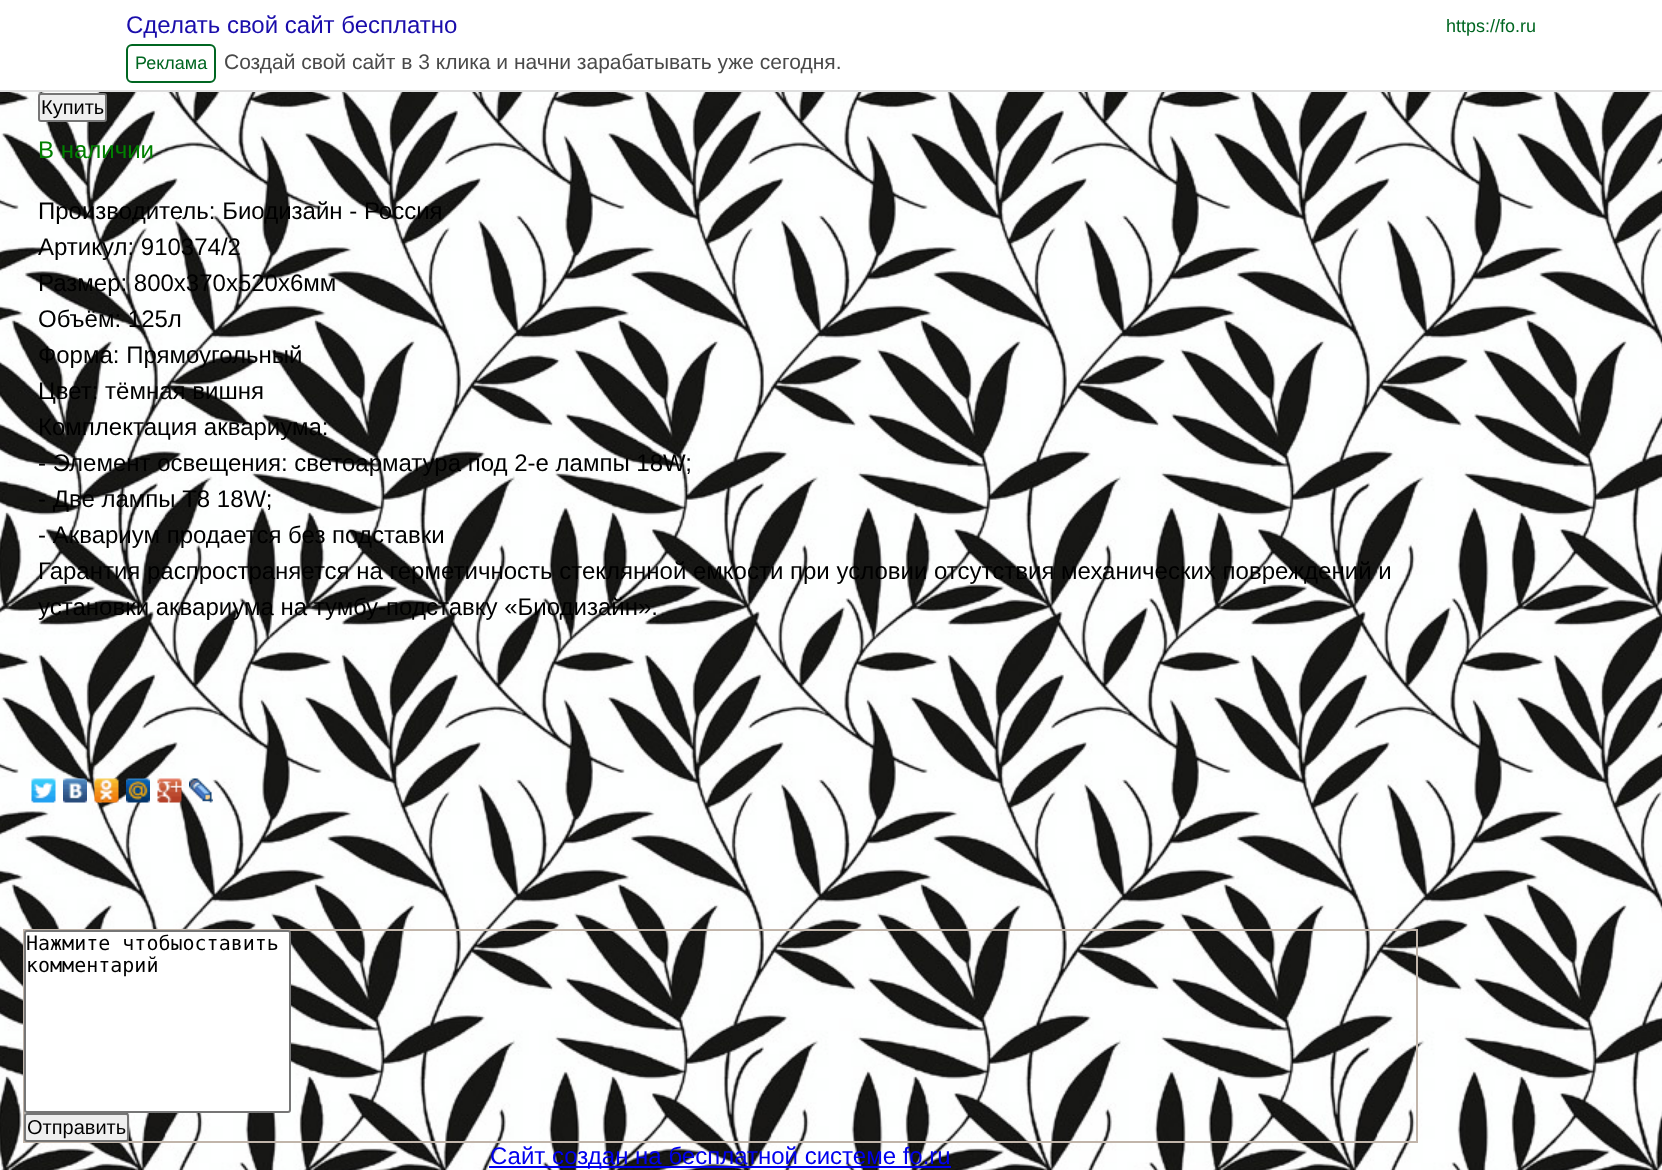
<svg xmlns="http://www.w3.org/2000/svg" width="1662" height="1170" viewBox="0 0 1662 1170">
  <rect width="100%" height="100%" fill="#fff"/>
  <image x="0" y="92" width="1662" height="1078" href="img/1.png"/>
  <path d="M0 90h1662v2H0z" fill="#ddd"/>
  <rect x="127" y="45" width="88" height="37" rx="5" fill="none" stroke="#006621" stroke-width="2"/>
  <rect x="39" y="94" width="67" height="27" rx="2" fill="#efefef" stroke="#767676" stroke-width="2"/>
  <image x="31" y="778" width="25" height="25" href="img/2.png"/>
  <image x="63" y="778" width="24" height="25" href="img/3.png"/>
  <image x="94" y="778" width="25" height="25" href="img/4.png"/>
  <image x="126" y="778" width="24" height="25" href="img/5.png"/>
  <image x="157" y="778" width="25" height="25" href="img/6.png"/>
  <image x="189" y="778" width="24" height="25" href="img/7.png"/>
  <path d="M24 930h1393v212H24z" fill="none" stroke="#c1b5aa" stroke-width="2"/>
  <rect x="25" y="931" width="265" height="181" rx="2" fill="#fff" stroke="#767676" stroke-width="2"/>
  <rect x="25" y="1114" width="103" height="27" rx="2" fill="#efefef" stroke="#767676" stroke-width="2"/>
  <path d="M489 1166h462v2H489z" fill="#00e"/>
  <text x="126" y="33" font-family="Liberation Sans" font-size="24" fill="#1a0dab">Сделать свой сайт бесплатно</text>
  <g font-family="Liberation Sans" font-size="18" fill="#006621">
    <text x="1446" y="32">https://fo.ru</text>
    <text x="135" y="69">Реклама</text>
  </g>
  <text x="224" y="69" font-family="Liberation Sans" font-size="21" fill="#4a4a4a">Создай свой сайт в 3 клика и начни зарабатывать уже сегодня.</text>
  <text x="41" y="114" font-family="Liberation Sans" font-size="20" fill="#000">Купить</text>
  <text x="38" y="158" font-family="Liberation Sans" font-size="24" fill="#008000">В наличии</text>
  <g font-family="Liberation Sans" font-size="24" fill="#000">
    <text x="38" y="219">Производитель: Биодизайн - Россия</text>
    <text x="38" y="255">Артикул: 910374/2</text>
    <text x="38" y="291">Размер: 800х370х520х6мм</text>
    <text x="38" y="327">Объём: 125л</text>
    <text x="38" y="363">Форма: Прямоугольный</text>
    <text x="38" y="399">Цвет: тёмная вишня</text>
    <text x="38" y="435">Комплектация аквариума:</text>
    <text x="38" y="471">- Элемент освещения: светоарматура под 2-е лампы 18W;</text>
    <text x="38" y="507">- Две лампы T8 18W;</text>
    <text x="38" y="543">- Аквариум продается без подставки</text>
    <text x="38" y="579">Гарантия распространяется на герметичность стеклянной емкости при условии отсутствия механических повреждений и</text>
    <text x="38" y="615">установки аквариума на тумбу-подставку «Биодизайн».</text>
  </g>
  <g font-family="DejaVu Sans Mono" font-size="20" fill="#000">
    <text x="26" y="950">Нажмите чтобыоставить</text>
    <text x="26" y="972">комментарий</text>
  </g>
  <text x="27" y="1134" font-family="Liberation Sans" font-size="20" fill="#000">Отправить</text>
  <text x="490" y="1164" font-family="Liberation Sans" font-size="24" fill="#00e">Сайт создан на бесплатной системе fo.ru</text>
</svg>
